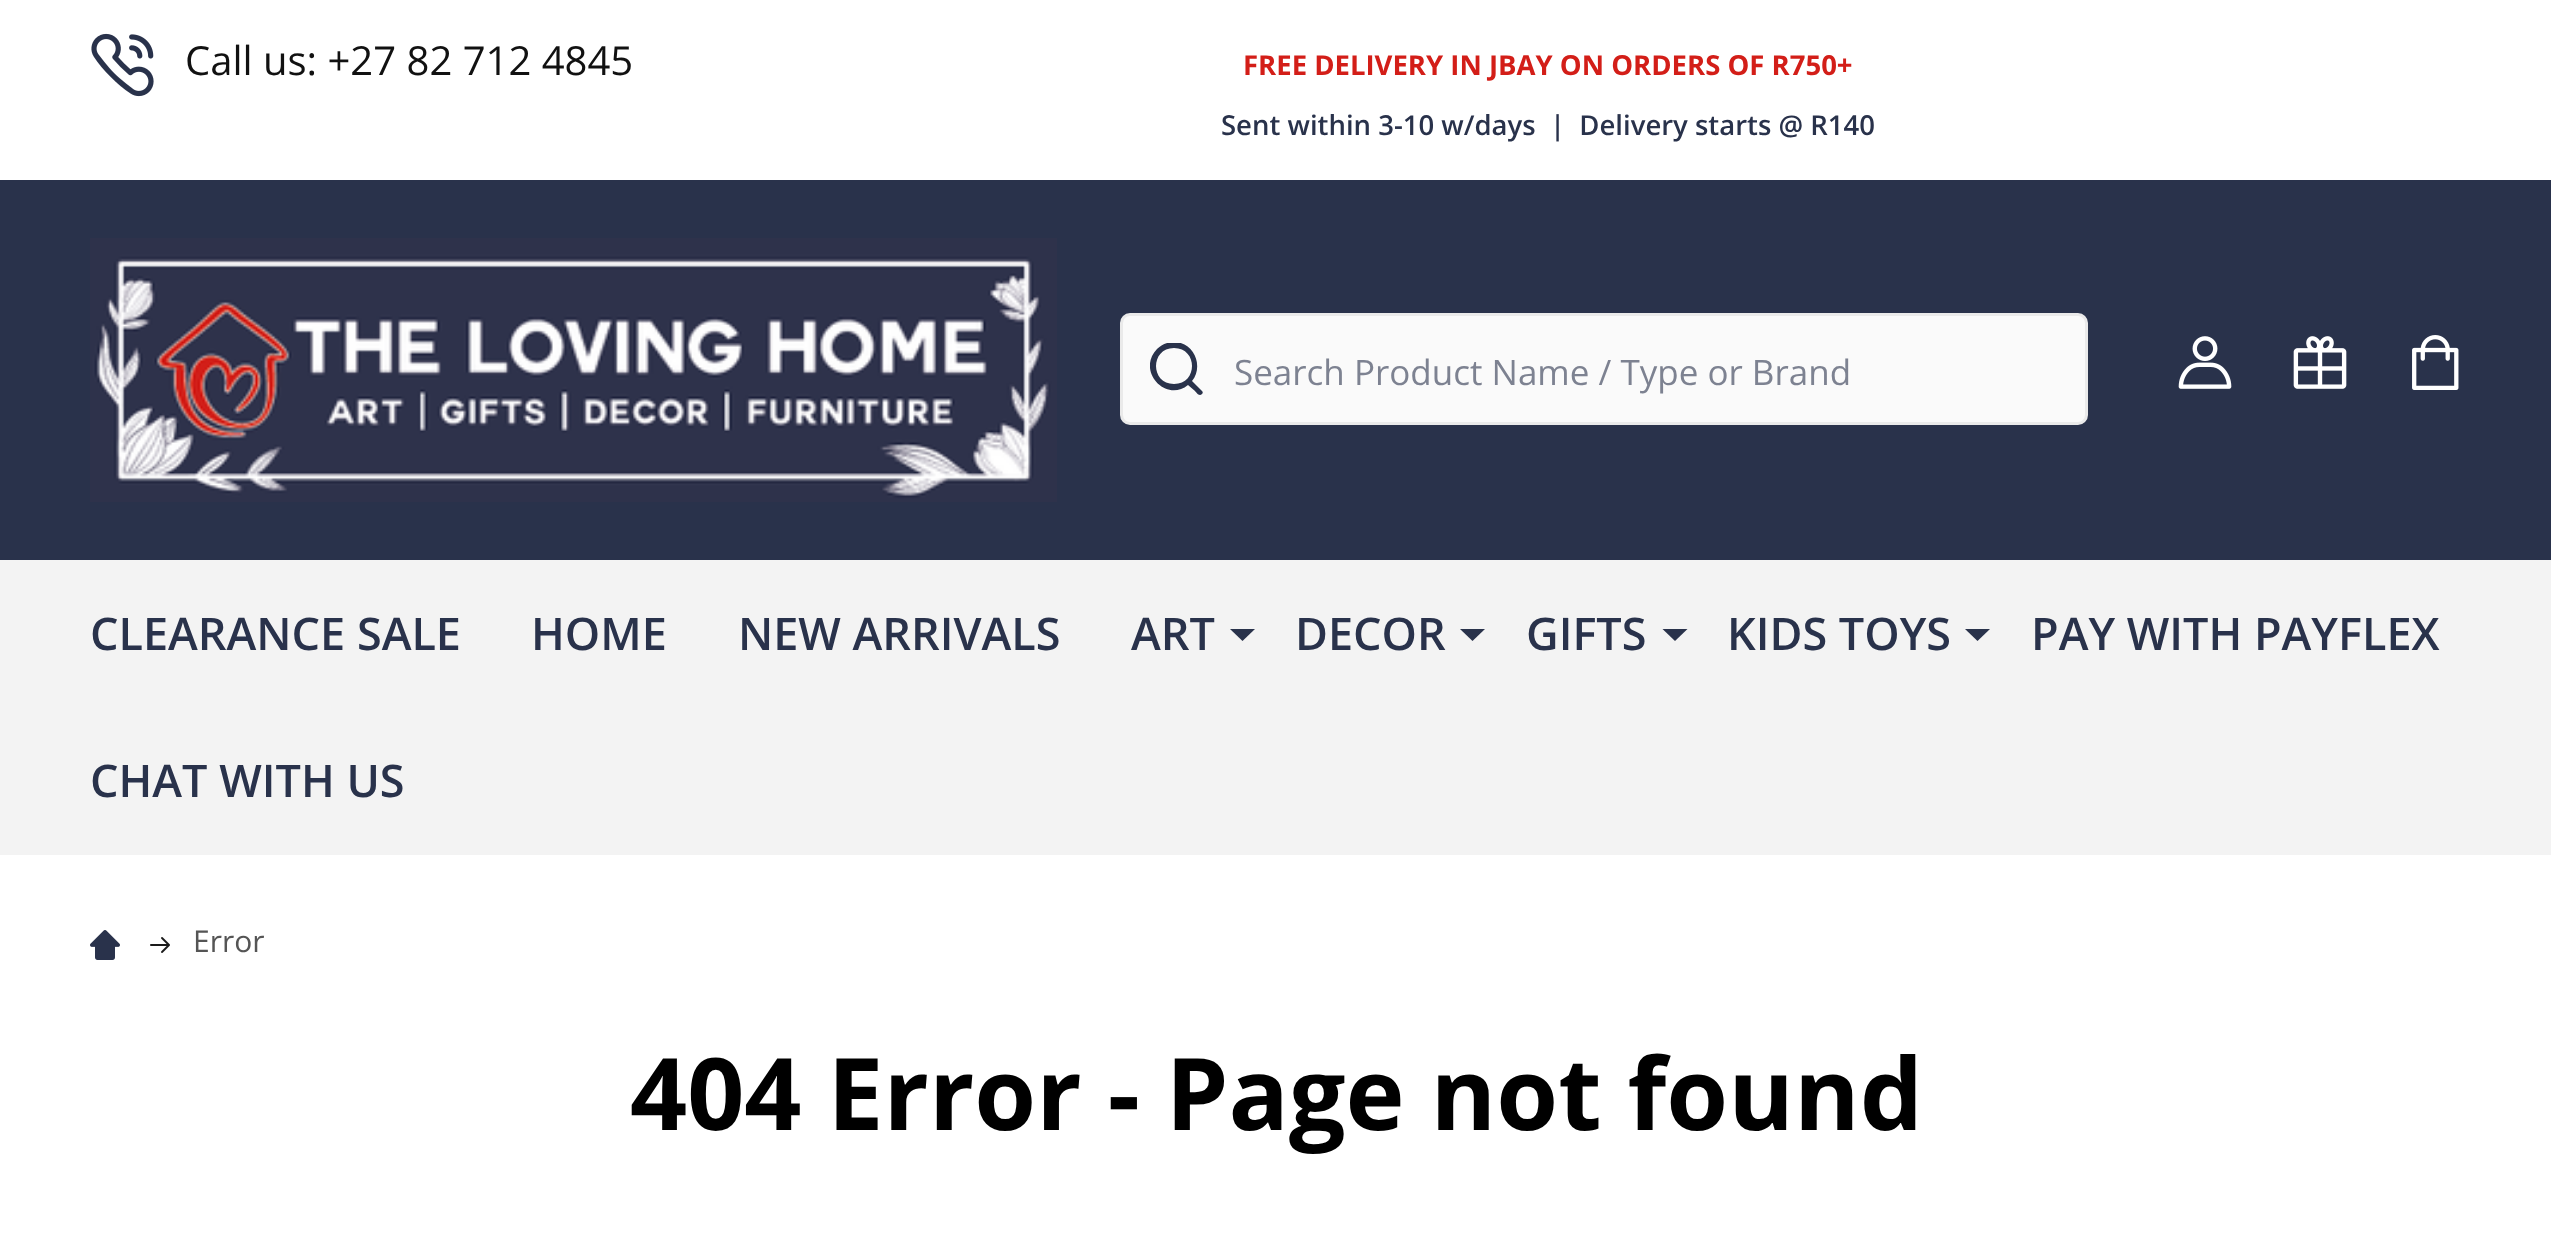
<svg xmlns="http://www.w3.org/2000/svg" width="2551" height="1247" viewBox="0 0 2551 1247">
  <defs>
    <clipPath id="clip1"><path d="M1150 343h53v52H1150z"/></clipPath>
  </defs>
  <rect width="100%" height="100%" fill="#fff"/>
  <path d="M0 180h2551v380H0z" fill="#29324b"/>
  <image x="91" y="33" width="63" height="64" href="img/1.png"/>
  <image x="90" y="238" width="967" height="264" href="img/2.png"/>
  <rect x="1121.5" y="314.5" width="965" height="109" rx="8.5" fill="#fafafa" stroke="#eaeaea" stroke-width="3"/>
  <g clip-path="url(#clip1)">
    <path d="M1174 342C1194 342 1204 366 1192 381L1202 391C1203 392 1203 393 1202 394C1199 397 1196 392 1195 391L1188 385C1166 403 1136 371 1157 349C1161 345 1167 342 1174 342ZM1174 348C1150 348 1150 384 1174 384C1198 384 1198 348 1174 348Z" fill="#29324b"/>
  </g>
  <image x="2178" y="336" width="54" height="53" href="img/3.png"/>
  <image x="2293" y="336" width="54" height="53" href="img/4.png"/>
  <image x="2412" y="335" width="47" height="55" href="img/5.png"/>
  <path d="M0 560h2551v295H0z" fill="#f3f3f3"/>
  <path d="M1230 629L1242.5 641L1255 629Z" fill="#29324b"/>
  <path d="M1460 629L1472.5 641L1485 629Z" fill="#29324b"/>
  <path d="M1662.5 629L1675 641L1687.5 629Z" fill="#29324b"/>
  <path d="M1965 629L1977.5 641L1990 629Z" fill="#29324b"/>
  <image x="90" y="930" width="30" height="30" href="img/6.png"/>
  <image x="150" y="937" width="20" height="16" href="img/7.png"/>
  <text x="185" y="75" font-family="Open Sans" font-size="40" fill="#111">Call us: +27 82 712 4845</text>
  <text x="1243" y="75" font-family="Open Sans" font-size="27.5" font-weight="bold" fill="#d31e18">FREE DELIVERY IN JBAY ON ORDERS OF R750+</text>
  <text x="1221" y="135" font-family="Open Sans" font-size="27.5" font-weight="600" fill="#29324b" xml:space="preserve">Sent within 3-10 w/days  |  Delivery starts @ R140</text>
  <text x="1234" y="385" font-family="Open Sans" font-size="35" fill="#7d8291">Search Product Name / Type or Brand</text>
  <g font-family="Open Sans" font-size="45" font-weight="600" fill="#29324b">
    <text x="90" y="650">CLEARANCE SALE</text>
    <text x="531" y="650">HOME</text>
    <text x="738" y="650">NEW ARRIVALS</text>
    <text x="1131" y="650">ART</text>
    <text x="1295" y="650">DECOR</text>
    <text x="1526" y="650">GIFTS</text>
    <text x="1727" y="650">KIDS TOYS</text>
    <text x="2031" y="650">PAY WITH PAYFLEX</text>
    <text x="90" y="797">CHAT WITH US</text>
  </g>
  <text x="193" y="952" font-family="Open Sans" font-size="30" fill="#555">Error</text>
  <text x="630" y="1130" font-family="Open Sans" font-size="100" font-weight="bold" fill="#000">404 Error - Page not found</text>
</svg>
